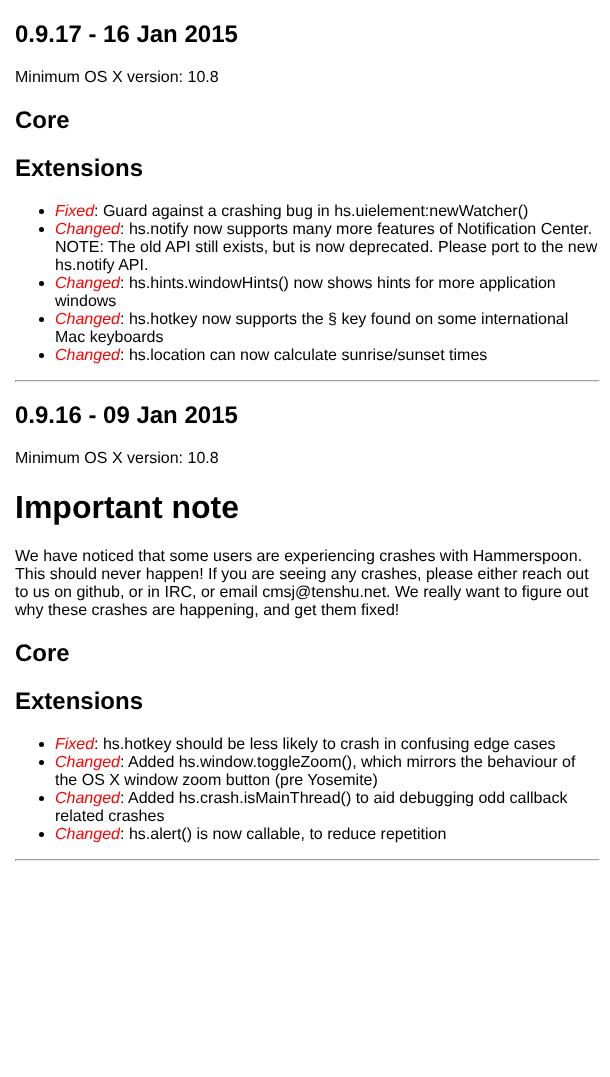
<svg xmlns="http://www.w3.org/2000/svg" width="610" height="1077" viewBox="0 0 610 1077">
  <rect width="100%" height="100%" fill="#fff"/>
  <circle cx="41.5" cy="211.5" r="2.5" fill="#000"/>
  <circle cx="41.5" cy="229.5" r="2.5" fill="#000"/>
  <circle cx="41.5" cy="283.5" r="2.5" fill="#000"/>
  <circle cx="41.5" cy="319.5" r="2.5" fill="#000"/>
  <circle cx="41.5" cy="355.5" r="2.5" fill="#000"/>
  <path d="M15 380h585v1H15z" fill="#9f9f9f"/>
  <path d="M599 380h1v2H599z" fill="#eee"/>
  <path d="M15 381h585v1H15z" fill="#eee"/>
  <path d="M15 380h1v2H15z" fill="#9f9f9f"/>
  <circle cx="41.5" cy="744.5" r="2.5" fill="#000"/>
  <circle cx="41.5" cy="762.5" r="2.5" fill="#000"/>
  <circle cx="41.5" cy="798.5" r="2.5" fill="#000"/>
  <circle cx="41.5" cy="834.5" r="2.5" fill="#000"/>
  <path d="M15 859h585v1H15z" fill="#9f9f9f"/>
  <path d="M599 859h1v2H599z" fill="#eee"/>
  <path d="M15 860h585v1H15z" fill="#eee"/>
  <path d="M15 859h1v2H15z" fill="#9f9f9f"/>
  <text x="15" y="42" font-family="Liberation Sans" font-size="24" font-weight="bold" fill="#000">0.9.17 - 16 Jan 2015</text>
  <text x="15" y="82" font-family="Liberation Sans" font-size="16" fill="#000">Minimum OS X version: 10.8</text>
  <g font-family="Liberation Sans" font-size="24" font-weight="bold" fill="#000">
    <text x="15" y="128">Core</text>
    <text x="15" y="176">Extensions</text>
  </g>
  <text x="55" y="216" font-family="Liberation Sans" font-size="16" font-style="italic" fill="#f00">Fixed</text>
  <text x="94" y="216" font-family="Liberation Sans" font-size="16" fill="#000">: Guard against a crashing bug in hs.uielement:newWatcher()</text>
  <text x="55" y="234" font-family="Liberation Sans" font-size="16" font-style="italic" fill="#f00">Changed</text>
  <g font-family="Liberation Sans" font-size="16" fill="#000">
    <text x="120" y="234">: hs.notify now supports many more features of Notification Center.</text>
    <text x="55" y="252">NOTE: The old API still exists, but is now deprecated. Please port to the new</text>
    <text x="55" y="270">hs.notify API.</text>
  </g>
  <text x="55" y="288" font-family="Liberation Sans" font-size="16" font-style="italic" fill="#f00">Changed</text>
  <g font-family="Liberation Sans" font-size="16" fill="#000">
    <text x="120" y="288">: hs.hints.windowHints() now shows hints for more application</text>
    <text x="55" y="306">windows</text>
  </g>
  <text x="55" y="324" font-family="Liberation Sans" font-size="16" font-style="italic" fill="#f00">Changed</text>
  <g font-family="Liberation Sans" font-size="16" fill="#000">
    <text x="120" y="324">: hs.hotkey now supports the § key found on some international</text>
    <text x="55" y="342">Mac keyboards</text>
  </g>
  <text x="55" y="360" font-family="Liberation Sans" font-size="16" font-style="italic" fill="#f00">Changed</text>
  <text x="120" y="360" font-family="Liberation Sans" font-size="16" fill="#000">: hs.location can now calculate sunrise/sunset times</text>
  <text x="15" y="423" font-family="Liberation Sans" font-size="24" font-weight="bold" fill="#000">0.9.16 - 09 Jan 2015</text>
  <text x="15" y="463" font-family="Liberation Sans" font-size="16" fill="#000">Minimum OS X version: 10.8</text>
  <text x="15" y="518" font-family="Liberation Sans" font-size="32" font-weight="bold" fill="#000">Important note</text>
  <g font-family="Liberation Sans" font-size="16" fill="#000">
    <text x="15" y="561">We have noticed that some users are experiencing crashes with Hammerspoon.</text>
    <text x="15" y="579">This should never happen! If you are seeing any crashes, please either reach out</text>
    <text x="15" y="597">to us on github, or in IRC, or email cmsj@tenshu.net. We really want to figure out</text>
    <text x="15" y="615">why these crashes are happening, and get them fixed!</text>
  </g>
  <g font-family="Liberation Sans" font-size="24" font-weight="bold" fill="#000">
    <text x="15" y="661">Core</text>
    <text x="15" y="709">Extensions</text>
  </g>
  <text x="55" y="749" font-family="Liberation Sans" font-size="16" font-style="italic" fill="#f00">Fixed</text>
  <text x="94" y="749" font-family="Liberation Sans" font-size="16" fill="#000">: hs.hotkey should be less likely to crash in confusing edge cases</text>
  <text x="55" y="767" font-family="Liberation Sans" font-size="16" font-style="italic" fill="#f00">Changed</text>
  <g font-family="Liberation Sans" font-size="16" fill="#000">
    <text x="120" y="767">: Added hs.window.toggleZoom(), which mirrors the behaviour of</text>
    <text x="55" y="785">the OS X window zoom button (pre Yosemite)</text>
  </g>
  <text x="55" y="803" font-family="Liberation Sans" font-size="16" font-style="italic" fill="#f00">Changed</text>
  <g font-family="Liberation Sans" font-size="16" fill="#000">
    <text x="120" y="803">: Added hs.crash.isMainThread() to aid debugging odd callback</text>
    <text x="55" y="821">related crashes</text>
  </g>
  <text x="55" y="839" font-family="Liberation Sans" font-size="16" font-style="italic" fill="#f00">Changed</text>
  <text x="120" y="839" font-family="Liberation Sans" font-size="16" fill="#000">: hs.alert() is now callable, to reduce repetition</text>
</svg>
